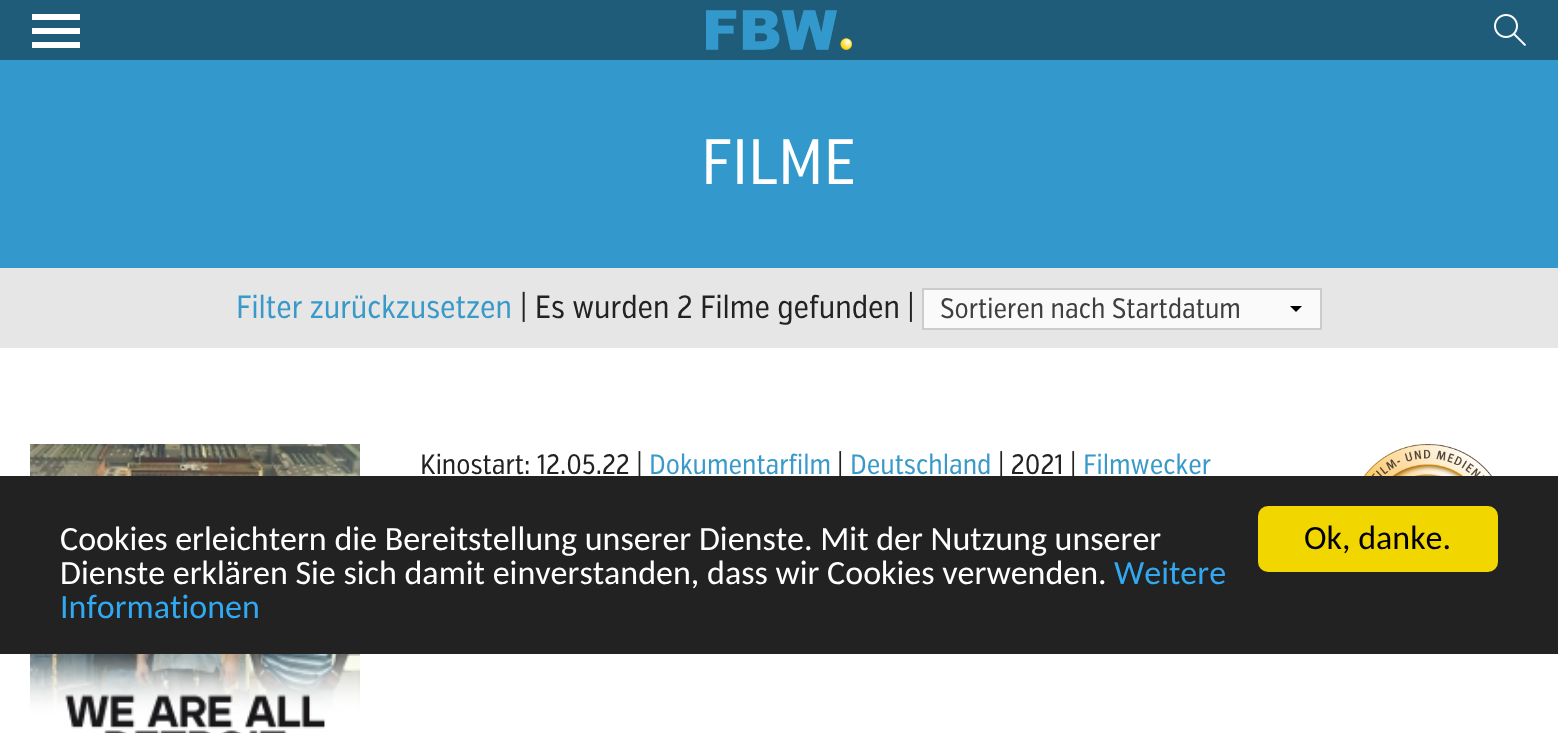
<svg xmlns="http://www.w3.org/2000/svg" width="1558" height="733" viewBox="0 0 1558 733">
  <style>*{font-kerning:none!important;font-variant-ligatures:none!important}</style>
  <rect width="100%" height="100%" fill="#fff"/>
  <path d="M0 0h1558v60H0z" fill="#1f5c7a"/>
  <path d="M32 14h48v6H32z" fill="#fff"/>
  <path d="M32 28h48v6H32z" fill="#fff"/>
  <path d="M32 42h48v6H32z" fill="#fff"/>
  <image x="706" y="10" width="146" height="40" href="img/1.png"/>
  <image x="1494" y="14" width="32" height="32" href="img/2.png"/>
  <path d="M0 60h1558v208H0z" fill="#39c"/>
  <path d="M0 268h1558v80H0z" fill="#e6e6e6"/>
  <path d="M924 290h396v38H924z" fill="#fafafa"/>
  <path d="M1302 306L1296 312L1290 306Z" fill="#000"/>
  <path d="M923 289h398v40H923z" fill="none" stroke="#ccc" stroke-width="2"/>
  <image x="30" y="444" width="330" height="289" href="img/3.png"/>
  <image x="1364" y="444" width="128" height="32" href="img/4.png"/>
  <path d="M0 476h1558v178H0z" fill="#222"/>
  <rect x="1258" y="506" width="240" height="66" rx="10" fill="#f1d600"/>
  <text x="701" y="184" font-family="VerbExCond" font-size="64" fill="#fff">FILME</text>
  <text x="236" y="318" font-family="VerbExCond" font-size="32" fill="#399aca">Filter zurückzusetzen</text>
  <text x="520" y="318" font-family="VerbExCond" font-size="32" fill="#222">| Es wurden 2 Filme gefunden |</text>
  <text x="940" y="318" font-family="VerbExCond" font-size="28" fill="#3f3f3f">Sortieren nach Startdatum</text>
  <text x="420" y="474" font-family="VerbExCond" font-size="28" fill="#222">Kinostart: 12.05.22 |</text>
  <text x="649" y="474" font-family="VerbExCond" font-size="28" fill="#399aca">Dokumentarfilm</text>
  <text x="837" y="474" font-family="VerbExCond" font-size="28" fill="#222">|</text>
  <text x="850" y="474" font-family="VerbExCond" font-size="28" fill="#399aca">Deutschland</text>
  <text x="998" y="474" font-family="VerbExCond" font-size="28" fill="#222">| 2021 |</text>
  <text x="1083" y="474" font-family="VerbExCond" font-size="28" fill="#399aca">Filmwecker</text>
  <g font-family="Carlito" font-size="34" fill="#fff">
    <text x="60" y="550">Cookies erleichtern die Bereitstellung unserer Dienste. Mit der Nutzung unserer</text>
    <text x="60" y="584">Dienste erklären Sie sich damit einverstanden, dass wir Cookies verwenden.</text>
  </g>
  <g font-family="Carlito" font-size="34" fill="#31a8f0">
    <text x="1114" y="584">Weitere</text>
    <text x="60" y="618">Informationen</text>
  </g>
  <text x="1304" y="549" font-family="Carlito" font-size="34" fill="#000">Ok, danke.</text>
</svg>
